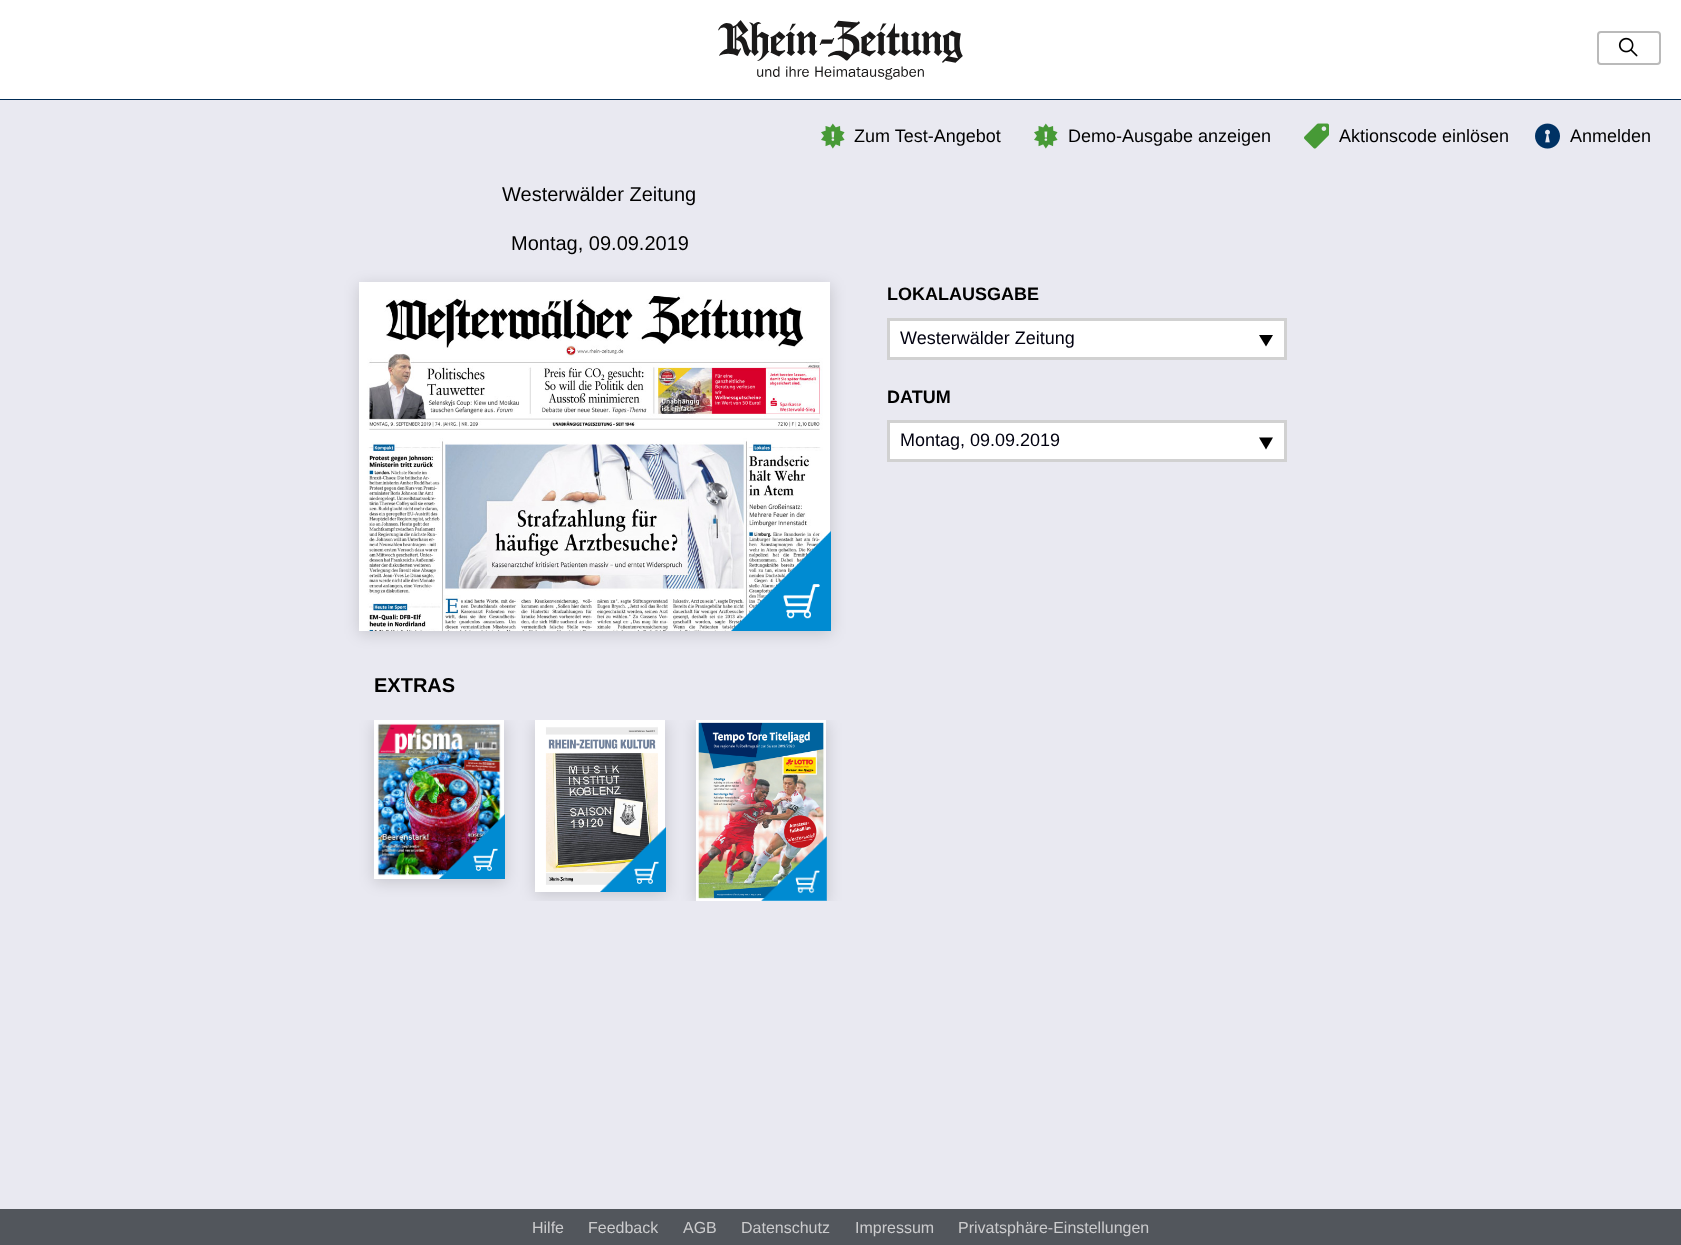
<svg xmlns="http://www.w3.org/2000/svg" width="1681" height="1245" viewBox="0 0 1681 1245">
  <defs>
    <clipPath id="clip1"><path d="M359 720h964v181H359z"/></clipPath>
  </defs>
  <rect width="100%" height="100%" fill="#e9e9f1"/>
  <path d="M0 0h1681v99H0z" fill="#fff"/>
  <path d="M0 99h1681v1H0z" fill="#002b55"/>
  <image x="718" y="20" width="245" height="60" href="img/1.png"/>
  <rect x="1598" y="32" width="62" height="32" rx="3" fill="none" stroke="#bababa" stroke-width="2"/>
  <image x="1618" y="37" width="20" height="20" href="img/2.png"/>
  <image x="821" y="123" width="24" height="26" href="img/3.png"/>
  <image x="1034" y="123" width="24" height="26" href="img/3.png"/>
  <image x="1304" y="123" width="25" height="26" href="img/4.png"/>
  <image x="1535" y="123" width="25" height="26" href="img/5.png"/>
  <path d="M359 285h472v349H359z" fill="#00000026" filter="blur(7.5px)"/>
  <image x="359" y="282" width="471" height="349" href="img/6.png"/>
  <image x="731" y="531" width="100" height="100" href="img/7.png"/>
  <path d="M888.5 319.5h397v39H888.5z" fill="#fff" stroke="#d1d1d1" stroke-width="3"/>
  <path d="M1259 335H1273L1266 346.5Z" fill="#000"/>
  <path d="M888.5 421.5h397v39H888.5z" fill="#fff" stroke="#d1d1d1" stroke-width="3"/>
  <path d="M1259 437.5H1273L1266 449.5Z" fill="#000"/>
  <g clip-path="url(#clip1)">
    <path d="M374 723h131v159H374z" fill="#00000026" filter="blur(7.5px)"/>
  </g>
  <image x="374" y="720" width="130" height="159" href="img/8.png"/>
  <image x="439" y="814" width="66" height="65" href="img/9.png"/>
  <g clip-path="url(#clip1)">
    <path d="M535 723h131v172H535z" fill="#00000026" filter="blur(7.5px)"/>
  </g>
  <image x="535" y="720" width="130" height="172" href="img/10.png"/>
  <image x="600" y="827" width="66" height="65" href="img/11.png"/>
  <g clip-path="url(#clip1)">
    <path d="M696 723h131v181H696z" fill="#00000026" filter="blur(7.5px)"/>
  </g>
  <image x="696" y="720" width="130" height="181" href="img/12.png"/>
  <image x="761" y="836" width="66" height="65" href="img/13.png"/>
  <path d="M0 1209h1681v36H0z" fill="#52565c"/>
  <g font-family="Liberation Sans" font-size="18" fill="#000">
    <text x="854" y="142">Zum Test-Angebot</text>
    <text x="1068" y="142">Demo-Ausgabe anzeigen</text>
    <text x="1339" y="142">Aktionscode einlösen</text>
    <text x="1570" y="142">Anmelden</text>
  </g>
  <g font-family="Liberation Sans" font-size="20" fill="#000">
    <text x="502" y="201">Westerwälder Zeitung</text>
    <text x="511" y="250">Montag, 09.09.2019</text>
  </g>
  <text x="887" y="300" font-family="Liberation Sans" font-size="18" font-weight="bold" fill="#000">LOKALAUSGABE</text>
  <text x="900" y="344" font-family="Liberation Sans" font-size="18" fill="#00000f">Westerwälder Zeitung</text>
  <text x="887" y="403" font-family="Liberation Sans" font-size="18" font-weight="bold" fill="#000">DATUM</text>
  <text x="900" y="446" font-family="Liberation Sans" font-size="18" fill="#00000f">Montag, 09.09.2019</text>
  <text x="374" y="692" font-family="Liberation Sans" font-size="20" font-weight="bold" fill="#000">EXTRAS</text>
  <g font-family="Liberation Sans" font-size="16" fill="#ccccce">
    <text x="532" y="1233">Hilfe</text>
    <text x="588" y="1233">Feedback</text>
    <text x="683" y="1233">AGB</text>
    <text x="741" y="1233">Datenschutz</text>
    <text x="855" y="1233">Impressum</text>
    <text x="958" y="1233">Privatsphäre-Einstellungen</text>
  </g>
</svg>
